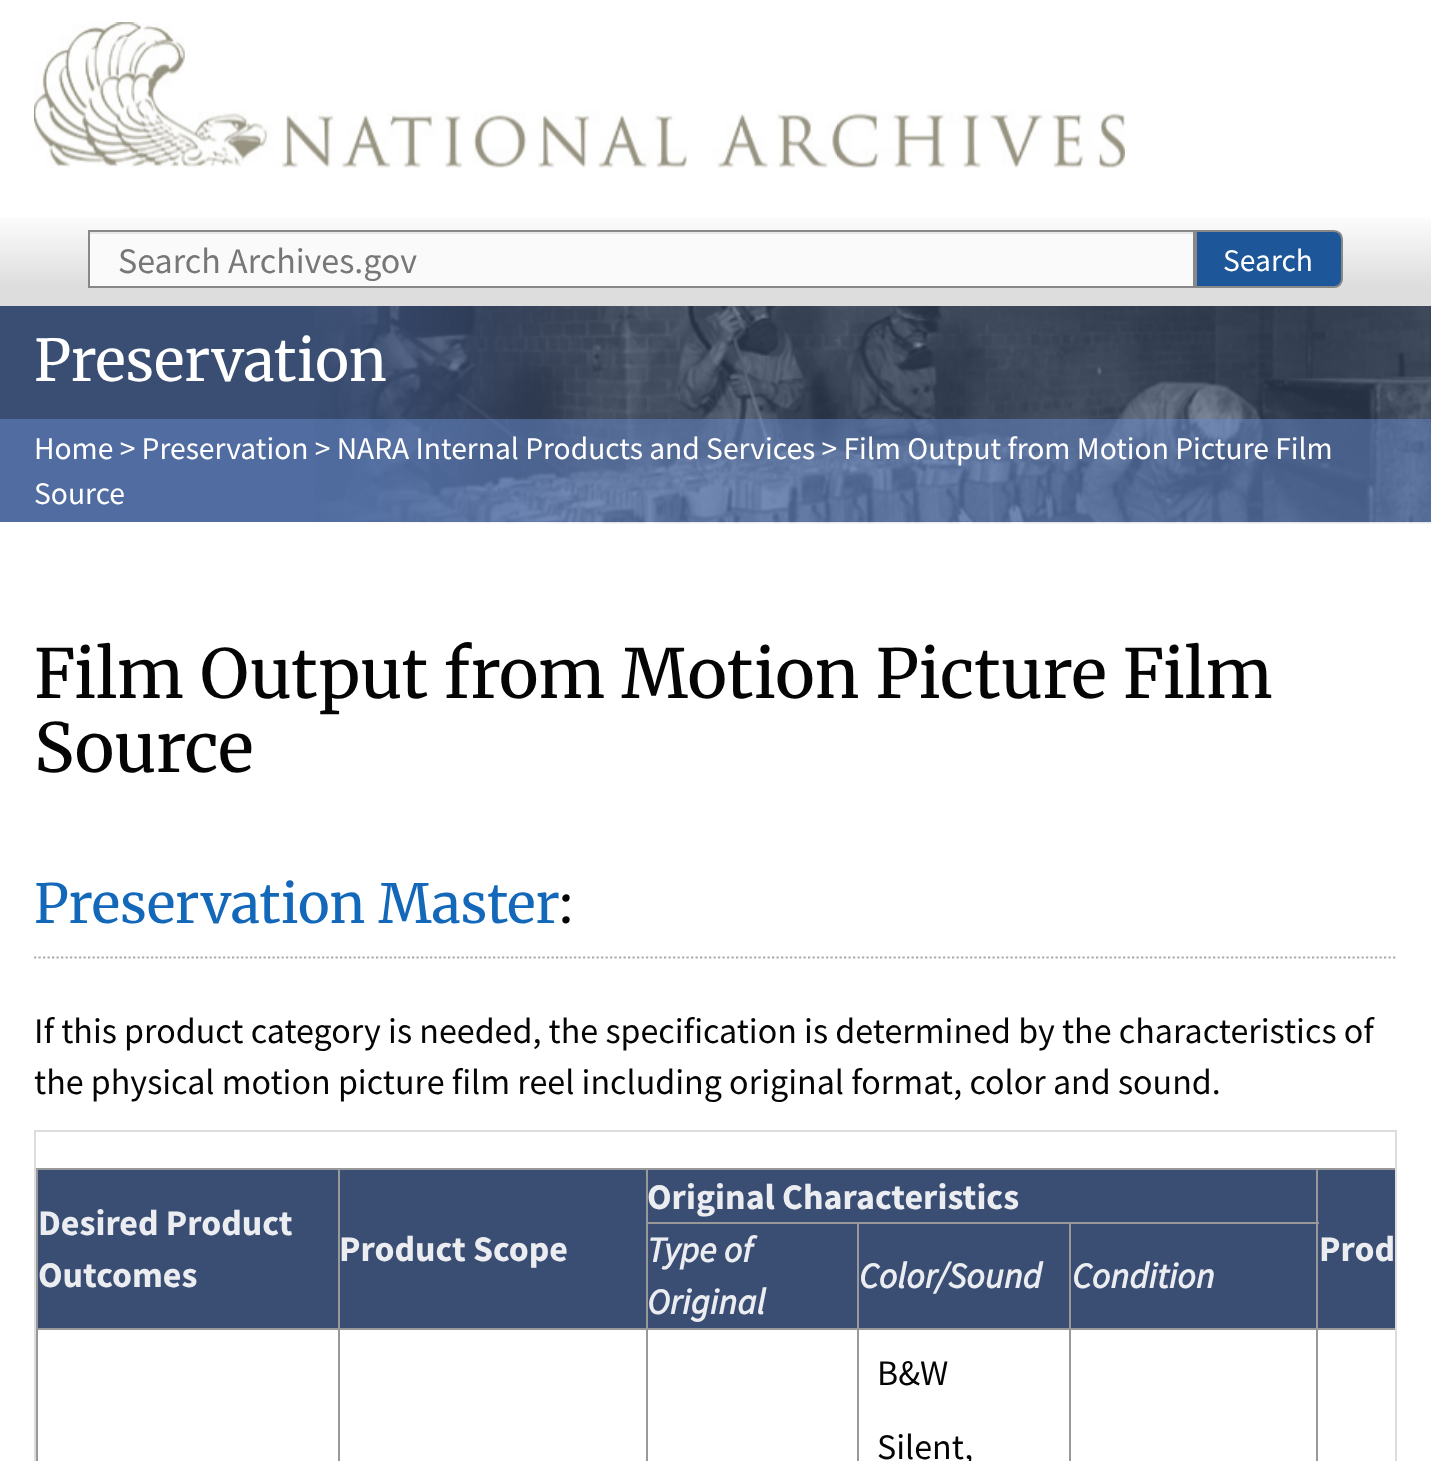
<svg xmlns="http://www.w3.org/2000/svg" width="1431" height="1461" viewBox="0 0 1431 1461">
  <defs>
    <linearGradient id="g1" gradientUnits="userSpaceOnUse" x1="716" y1="211" x2="716" y2="306"><stop offset="0" stop-color="#fff"/><stop offset="0.8" stop-color="#ddd"/></linearGradient>
  </defs>
  <rect width="100%" height="100%" fill="#fff"/>
  <image x="34" y="22" width="1091" height="146" href="img/1.png"/>
  <path d="M0 217h1431v89H0z" fill="url(#g1)"/>
  <path d="M90 234h1103v52H90z" fill="#fafafa"/>
  <path d="M90 232h1103v2H90z" fill="#e7e7e7"/>
  <path d="M89 231h1105v56H89z" fill="none" stroke="#888" stroke-width="2"/>
  <path d="M1196 231H1334C1338.5 231 1342 234.5 1342 239V279C1342 283.5 1338.5 287 1334 287H1196Z" fill="#1e5799" stroke="#888" stroke-width="2"/>
  <path d="M0 306h1431v216H0z" fill="#3a4e74"/>
  <image x="315" y="306" width="1116" height="218" href="img/2.png"/>
  <path d="M0 419h1431v103H0z" fill="#6689cb80"/>
  <path d="M34 957.5H1397" fill="none" stroke="#aaa" stroke-width="2.2" stroke-dasharray="2.25 2.25"/>
  <path d="M35 1131h1361v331H35z" fill="none" stroke="#ddd" stroke-width="2"/>
  <path d="M36 1168h1359v2H36z" fill="#999"/>
  <path d="M36 1168h2v293H36z" fill="#999"/>
  <path d="M648 1170h671v52H648z" fill="#3a4e74"/>
  <path d="M38 1170h300v158H38z" fill="#3a4e74"/>
  <path d="M340 1170h306v158H340z" fill="#3a4e74"/>
  <path d="M1316 1328h79v2H1316z" fill="#999"/>
  <path d="M1316 1328h2v133H1316z" fill="#999"/>
  <path d="M1069 1328h250v2H1069z" fill="#999"/>
  <path d="M1069 1328h2v133H1069z" fill="#999"/>
  <path d="M857 1328h214v2H857z" fill="#999"/>
  <path d="M857 1328h2v133H857z" fill="#999"/>
  <path d="M646 1328h214v2H646z" fill="#999"/>
  <path d="M646 1328h2v133H646z" fill="#999"/>
  <path d="M338 1328h310v2H338z" fill="#999"/>
  <path d="M338 1328h2v133H338z" fill="#999"/>
  <path d="M36 1328h304v2H36z" fill="#999"/>
  <path d="M338 1168h2v162H338z" fill="#999"/>
  <path d="M1319 1170h76v158H1319z" fill="#3a4e74"/>
  <path d="M1071 1224h248v104H1071z" fill="#3a4e74"/>
  <path d="M1069 1222h250v2H1069z" fill="#999"/>
  <path d="M1316 1168h2v162H1316z" fill="#999"/>
  <path d="M648 1224h209v104H648z" fill="#3a4e74"/>
  <path d="M1069 1222h2v108H1069z" fill="#999"/>
  <path d="M857 1222h214v2H857z" fill="#999"/>
  <path d="M857 1222h2v108H857z" fill="#999"/>
  <path d="M646 1222h214v2H646z" fill="#999"/>
  <path d="M646 1168h2v162H646z" fill="#999"/>
  <path d="M859 1224h210v104H859z" fill="#3a4e74"/>
  <text x="118" y="273" font-family="Source Sans Pro" font-size="36" fill="#777">Search Archives.gov</text>
  <text x="1223" y="271" font-family="Source Sans Pro" font-size="31.5" fill="#fff">Search</text>
  <text x="34" y="381" font-family="Merriweather" font-size="57.5" font-weight="300" fill="#fff">Preservation</text>
  <g font-family="Source Sans Pro" font-size="31.5" fill="#fff">
    <text x="34" y="459">Home &gt; Preservation &gt; NARA Internal Products and Services &gt; Film Output from Motion Picture Film</text>
    <text x="34" y="504">Source</text>
  </g>
  <g font-family="Merriweather" font-size="67.5" font-weight="300" fill="#050505">
    <text x="34" y="698">Film Output from Motion Picture Film</text>
    <text x="34" y="772">Source</text>
  </g>
  <text x="34" y="923" font-family="Merriweather" font-size="54" font-weight="300" fill="#1368ba">Preservation Master</text>
  <text x="559" y="923" font-family="Merriweather" font-size="54" font-weight="300" fill="#050505">:</text>
  <g font-family="Source Sans Pro" font-size="36" fill="#050505">
    <text x="34" y="1043">If this product category is needed, the specification is determined by the characteristics of</text>
    <text x="34" y="1094">the physical motion picture film reel including original format, color and sound.</text>
  </g>
  <g font-family="Source Sans Pro" font-size="36" font-weight="bold" fill="#ebedf1">
    <text x="647" y="1209">Original Characteristics</text>
    <text x="38" y="1235">Desired Product</text>
    <text x="38" y="1287">Outcomes</text>
    <text x="339" y="1261">Product Scope</text>
    <text x="1319" y="1261">Prod</text>
  </g>
  <g font-family="Source Sans Pro" font-size="36" font-weight="bold" font-style="italic" fill="#ebedf1">
    <text x="647" y="1262">Type of</text>
    <text x="647" y="1314">Original</text>
    <text x="859" y="1288">Color/Sound</text>
    <text x="1072" y="1288">Condition</text>
  </g>
  <g font-family="Source Sans Pro" font-size="36" fill="#050505">
    <text x="877" y="1385">B&amp;W</text>
    <text x="877" y="1459">Silent,</text>
  </g>
</svg>
